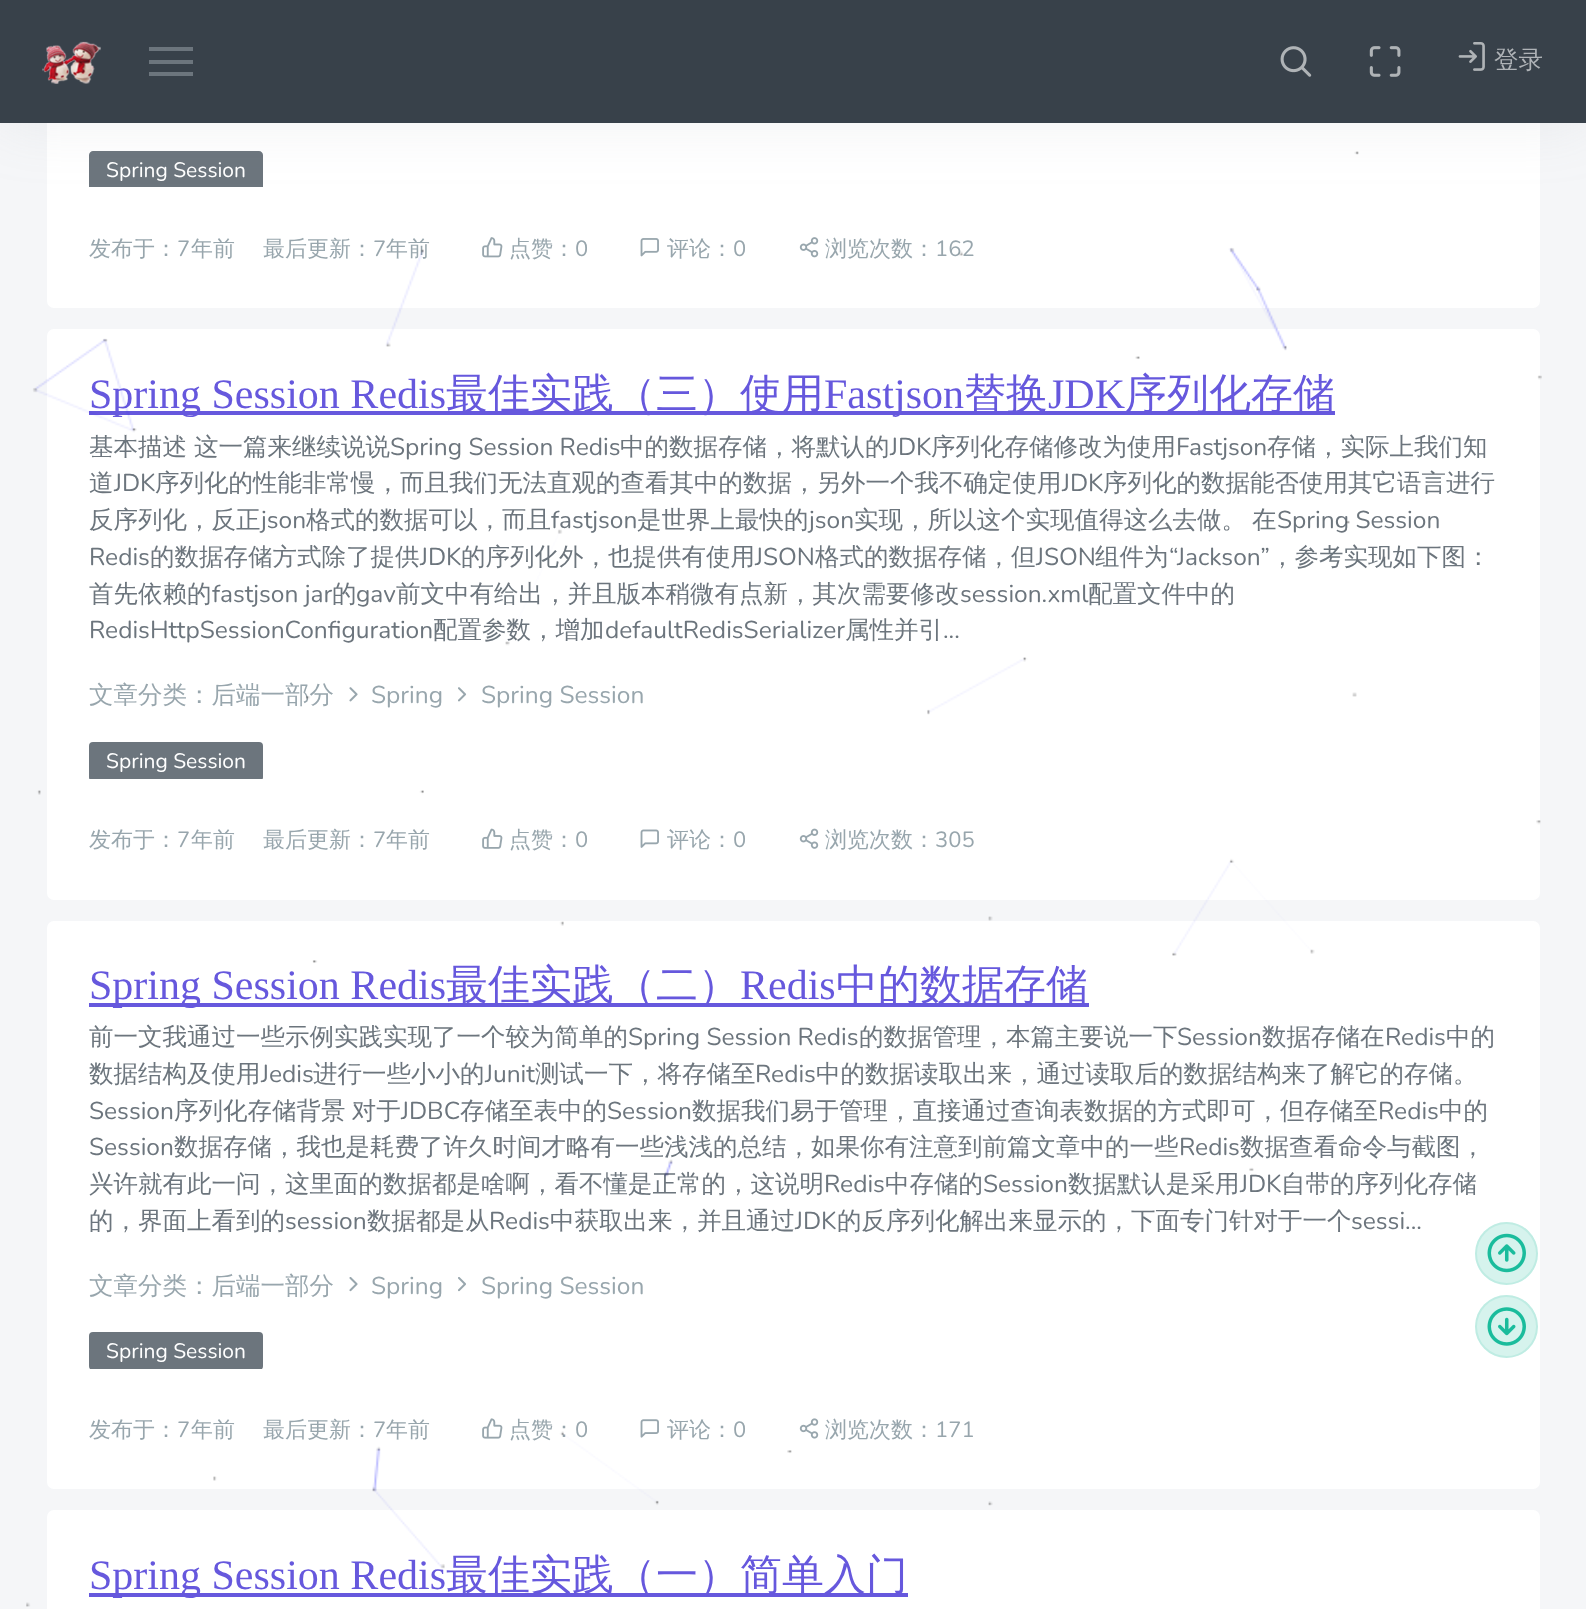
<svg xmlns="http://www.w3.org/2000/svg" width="1586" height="1609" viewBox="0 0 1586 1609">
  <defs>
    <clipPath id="clip1"><path d="M89 371h1409v408H89z"/></clipPath>
    <clipPath id="clip2"><path d="M89 963h1409v406H89z"/></clipPath>
  </defs>
  <rect width="100%" height="100%" fill="#f5f6f8"/>
  <rect x="47" y="-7" width="1493" height="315" rx="7" fill="#fff"/>
  <path d="M93 151H259C261 151 263 153 263 155V187H89V155C89 153 91 151 93 151Z" fill="#6c757d"/>
  <image x="482" y="237" width="21" height="21" href="img/5.png"/>
  <image x="640" y="238" width="19" height="19" href="img/6.png"/>
  <image x="799" y="237" width="20" height="21" href="img/7.png"/>
  <rect x="47" y="329" width="1493" height="571" rx="7" fill="#fff"/>
  <path d="M89 411h1246v4H89z" fill="#6658dd"/>
  <image x="349" y="687" width="9" height="15" href="img/8.png"/>
  <image x="458" y="687" width="9" height="15" href="img/9.png"/>
  <g clip-path="url(#clip1)">
    <rect x="89" y="742" width="174" height="39" rx="4" fill="#6c757d"/>
  </g>
  <image x="482" y="828" width="21" height="21" href="img/10.png"/>
  <image x="640" y="829" width="19" height="19" href="img/11.png"/>
  <image x="799" y="828" width="20" height="21" href="img/12.png"/>
  <rect x="47" y="921" width="1493" height="568" rx="7" fill="#fff"/>
  <path d="M89 1003h1000v4H89z" fill="#6658dd"/>
  <image x="349" y="1277" width="9" height="15" href="img/13.png"/>
  <image x="458" y="1277" width="8" height="15" href="img/14.png"/>
  <g clip-path="url(#clip2)">
    <rect x="89" y="1332" width="174" height="38" rx="4" fill="#6c757d"/>
  </g>
  <image x="482" y="1418" width="21" height="21" href="img/15.png"/>
  <image x="640" y="1419" width="19" height="19" href="img/16.png"/>
  <image x="799" y="1418" width="20" height="21" href="img/17.png"/>
  <rect x="47" y="1510" width="1493" height="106" rx="7" fill="#fff"/>
  <path d="M89 1593h819v4H89z" fill="#6658dd"/>
  <circle cx="1506.5" cy="1253.5" r="31.5" fill="#d6f3ed"/>
  <circle cx="1506.5" cy="1253.5" r="30.5" fill="none" stroke="#1abc9c1f" stroke-width="2"/>
  <image x="1487" y="1233" width="39" height="40" href="img/18.png"/>
  <circle cx="1506.5" cy="1326.5" r="31.5" fill="#d6f3ed"/>
  <circle cx="1506.5" cy="1326.5" r="30.5" fill="none" stroke="#1abc9c1f" stroke-width="2"/>
  <image x="1487" y="1307" width="39" height="39" href="img/19.png"/>
  <text x="106" y="177" font-family="Nunito" font-size="21" fill="#fff">Spring Session</text>
  <text x="89" y="256" font-family="WenQuanYi Zen Hei" font-size="22" font-weight="500" fill="#98a6ad">发布于：</text>
  <text x="177" y="256" font-family="Nunito" font-size="22" fill="#98a6ad">7</text>
  <g font-family="WenQuanYi Zen Hei" font-size="22" font-weight="500" fill="#98a6ad">
    <text x="191" y="256">年前</text>
    <text x="263" y="256">最后更新：</text>
  </g>
  <text x="373" y="256" font-family="Nunito" font-size="22" fill="#98a6ad">7</text>
  <g font-family="WenQuanYi Zen Hei" font-size="22" font-weight="500" fill="#98a6ad">
    <text x="386" y="256">年前</text>
    <text x="509" y="256">点赞：</text>
  </g>
  <text x="575" y="256" font-family="Nunito" font-size="22" fill="#98a6ad">0</text>
  <text x="667" y="256" font-family="WenQuanYi Zen Hei" font-size="22" font-weight="500" fill="#98a6ad">评论：</text>
  <text x="733" y="256" font-family="Nunito" font-size="22" fill="#98a6ad">0</text>
  <text x="825" y="256" font-family="WenQuanYi Zen Hei" font-size="22" font-weight="500" fill="#98a6ad">浏览次数：</text>
  <text x="935" y="256" font-family="Nunito" font-size="22" fill="#98a6ad">162</text>
  <text x="89" y="408" font-family="Liberation Serif" font-size="42" fill="#6658dd">Spring Session Redis</text>
  <text x="446" y="408" font-family="WenQuanYi Zen Hei" font-size="42" font-weight="500" fill="#6658dd">最佳实践（三）使用</text>
  <text x="824" y="408" font-family="Liberation Serif" font-size="42" fill="#6658dd">Fastjson</text>
  <text x="964" y="408" font-family="WenQuanYi Zen Hei" font-size="42" font-weight="500" fill="#6658dd">替换</text>
  <text x="1048" y="408" font-family="Liberation Serif" font-size="42" fill="#6658dd">JDK</text>
  <text x="1125" y="408" font-family="WenQuanYi Zen Hei" font-size="42" font-weight="500" fill="#6658dd">序列化存储</text>
  <g font-family="WenQuanYi Zen Hei" font-size="24.5" font-weight="500" fill="#6c757d">
    <text x="89" y="455">基本描述</text>
    <text x="194" y="455">这一篇来继续说说</text>
  </g>
  <text x="390" y="455" font-family="Nunito" font-size="24.5" fill="#6c757d">Spring Session Redis</text>
  <text x="620" y="455" font-family="WenQuanYi Zen Hei" font-size="24.5" font-weight="500" fill="#6c757d">中的数据存储，将默认的</text>
  <text x="890" y="455" font-family="Nunito" font-size="24.5" fill="#6c757d">JDK</text>
  <text x="931" y="455" font-family="WenQuanYi Zen Hei" font-size="24.5" font-weight="500" fill="#6c757d">序列化存储修改为使用</text>
  <text x="1176" y="455" font-family="Nunito" font-size="24.5" fill="#6c757d">Fastjson</text>
  <g font-family="WenQuanYi Zen Hei" font-size="24.5" font-weight="500" fill="#6c757d">
    <text x="1267" y="455">存储，实际上我们知</text>
    <text x="89" y="491">道</text>
  </g>
  <text x="114" y="491" font-family="Nunito" font-size="24.5" fill="#6c757d">JDK</text>
  <text x="155" y="491" font-family="WenQuanYi Zen Hei" font-size="24.5" font-weight="500" fill="#6c757d">序列化的性能非常慢，而且我们无法直观的查看其中的数据，另外一个我不确定使用</text>
  <text x="1062" y="491" font-family="Nunito" font-size="24.5" fill="#6c757d">JDK</text>
  <g font-family="WenQuanYi Zen Hei" font-size="24.5" font-weight="500" fill="#6c757d">
    <text x="1103" y="491">序列化的数据能否使用其它语言进行</text>
    <text x="89" y="528">反序列化，反正</text>
  </g>
  <text x="261" y="528" font-family="Nunito" font-size="24.5" fill="#6c757d">json</text>
  <text x="306" y="528" font-family="WenQuanYi Zen Hei" font-size="24.5" font-weight="500" fill="#6c757d">格式的数据可以，而且</text>
  <text x="551" y="528" font-family="Nunito" font-size="24.5" fill="#6c757d">fastjson</text>
  <text x="637" y="528" font-family="WenQuanYi Zen Hei" font-size="24.5" font-weight="500" fill="#6c757d">是世界上最快的</text>
  <text x="809" y="528" font-family="Nunito" font-size="24.5" fill="#6c757d">json</text>
  <g font-family="WenQuanYi Zen Hei" font-size="24.5" font-weight="500" fill="#6c757d">
    <text x="854" y="528">实现，所以这个实现值得这么去做。</text>
    <text x="1252" y="528">在</text>
  </g>
  <g font-family="Nunito" font-size="24.5" fill="#6c757d">
    <text x="1277" y="528">Spring Session</text>
    <text x="89" y="565">Redis</text>
  </g>
  <text x="150" y="565" font-family="WenQuanYi Zen Hei" font-size="24.5" font-weight="500" fill="#6c757d">的数据存储方式除了提供</text>
  <text x="420" y="565" font-family="Nunito" font-size="24.5" fill="#6c757d">JDK</text>
  <text x="461" y="565" font-family="WenQuanYi Zen Hei" font-size="24.5" font-weight="500" fill="#6c757d">的序列化外，也提供有使用</text>
  <text x="755" y="565" font-family="Nunito" font-size="24.5" fill="#6c757d">JSON</text>
  <text x="815" y="565" font-family="WenQuanYi Zen Hei" font-size="24.5" font-weight="500" fill="#6c757d">格式的数据存储，但</text>
  <text x="1036" y="565" font-family="Nunito" font-size="24.5" fill="#6c757d">JSON</text>
  <text x="1095" y="565" font-family="WenQuanYi Zen Hei" font-size="24.5" font-weight="500" fill="#6c757d">组件为</text>
  <text x="1169" y="565" font-family="Nunito" font-size="24.5" fill="#6c757d">“Jackson”</text>
  <g font-family="WenQuanYi Zen Hei" font-size="24.5" font-weight="500" fill="#6c757d">
    <text x="1270" y="565">，参考实现如下图：</text>
    <text x="89" y="602">首先依赖的</text>
  </g>
  <text x="212" y="602" font-family="Nunito" font-size="24.5" fill="#6c757d">fastjson jar</text>
  <text x="332" y="602" font-family="WenQuanYi Zen Hei" font-size="24.5" font-weight="500" fill="#6c757d">的</text>
  <text x="356" y="602" font-family="Nunito" font-size="24.5" fill="#6c757d">gav</text>
  <text x="396" y="602" font-family="WenQuanYi Zen Hei" font-size="24.5" font-weight="500" fill="#6c757d">前文中有给出，并且版本稍微有点新，其次需要修改</text>
  <text x="960" y="602" font-family="Nunito" font-size="24.5" fill="#6c757d">session.xml</text>
  <text x="1088" y="602" font-family="WenQuanYi Zen Hei" font-size="24.5" font-weight="500" fill="#6c757d">配置文件中的</text>
  <text x="89" y="638" font-family="Nunito" font-size="24.5" fill="#6c757d">RedisHttpSessionConfiguration</text>
  <text x="433" y="638" font-family="WenQuanYi Zen Hei" font-size="24.5" font-weight="500" fill="#6c757d">配置参数，增加</text>
  <text x="605" y="638" font-family="Nunito" font-size="24.5" fill="#6c757d">defaultRedisSerializer</text>
  <text x="845" y="638" font-family="WenQuanYi Zen Hei" font-size="24.5" font-weight="500" fill="#6c757d">属性并引</text>
  <text x="943" y="638" font-family="Nunito" font-size="24.5" fill="#6c757d">...</text>
  <text x="89" y="703" font-family="WenQuanYi Zen Hei" font-size="24.5" font-weight="500" fill="#98a6ad">文章分类：后端一部分</text>
  <g font-family="Nunito" font-size="24.5" fill="#98a6ad">
    <text x="371" y="703">Spring</text>
    <text x="481" y="703">Spring Session</text>
  </g>
  <text x="106" y="768" font-family="Nunito" font-size="21" fill="#fff">Spring Session</text>
  <text x="89" y="847" font-family="WenQuanYi Zen Hei" font-size="22" font-weight="500" fill="#98a6ad">发布于：</text>
  <text x="177" y="847" font-family="Nunito" font-size="22" fill="#98a6ad">7</text>
  <g font-family="WenQuanYi Zen Hei" font-size="22" font-weight="500" fill="#98a6ad">
    <text x="191" y="847">年前</text>
    <text x="263" y="847">最后更新：</text>
  </g>
  <text x="373" y="847" font-family="Nunito" font-size="22" fill="#98a6ad">7</text>
  <g font-family="WenQuanYi Zen Hei" font-size="22" font-weight="500" fill="#98a6ad">
    <text x="386" y="847">年前</text>
    <text x="509" y="847">点赞：</text>
  </g>
  <text x="575" y="847" font-family="Nunito" font-size="22" fill="#98a6ad">0</text>
  <text x="667" y="847" font-family="WenQuanYi Zen Hei" font-size="22" font-weight="500" fill="#98a6ad">评论：</text>
  <text x="733" y="847" font-family="Nunito" font-size="22" fill="#98a6ad">0</text>
  <text x="825" y="847" font-family="WenQuanYi Zen Hei" font-size="22" font-weight="500" fill="#98a6ad">浏览次数：</text>
  <text x="935" y="847" font-family="Nunito" font-size="22" fill="#98a6ad">305</text>
  <text x="89" y="999" font-family="Liberation Serif" font-size="42" fill="#6658dd">Spring Session Redis</text>
  <text x="446" y="999" font-family="WenQuanYi Zen Hei" font-size="42" font-weight="500" fill="#6658dd">最佳实践（二）</text>
  <text x="740" y="999" font-family="Liberation Serif" font-size="42" fill="#6658dd">Redis</text>
  <text x="836" y="999" font-family="WenQuanYi Zen Hei" font-size="42" font-weight="500" fill="#6658dd">中的数据存储</text>
  <text x="89" y="1045" font-family="WenQuanYi Zen Hei" font-size="24.5" font-weight="500" fill="#6c757d">前一文我通过一些示例实践实现了一个较为简单的</text>
  <text x="628" y="1045" font-family="Nunito" font-size="24.5" fill="#6c757d">Spring Session Redis</text>
  <text x="859" y="1045" font-family="WenQuanYi Zen Hei" font-size="24.5" font-weight="500" fill="#6c757d">的数据管理，本篇主要说一下</text>
  <text x="1177" y="1045" font-family="Nunito" font-size="24.5" fill="#6c757d">Session</text>
  <text x="1262" y="1045" font-family="WenQuanYi Zen Hei" font-size="24.5" font-weight="500" fill="#6c757d">数据存储在</text>
  <text x="1385" y="1045" font-family="Nunito" font-size="24.5" fill="#6c757d">Redis</text>
  <g font-family="WenQuanYi Zen Hei" font-size="24.5" font-weight="500" fill="#6c757d">
    <text x="1446" y="1045">中的</text>
    <text x="89" y="1082">数据结构及使用</text>
  </g>
  <text x="261" y="1082" font-family="Nunito" font-size="24.5" fill="#6c757d">Jedis</text>
  <text x="313" y="1082" font-family="WenQuanYi Zen Hei" font-size="24.5" font-weight="500" fill="#6c757d">进行一些小小的</text>
  <text x="485" y="1082" font-family="Nunito" font-size="24.5" fill="#6c757d">Junit</text>
  <text x="535" y="1082" font-family="WenQuanYi Zen Hei" font-size="24.5" font-weight="500" fill="#6c757d">测试一下，将存储至</text>
  <text x="755" y="1082" font-family="Nunito" font-size="24.5" fill="#6c757d">Redis</text>
  <text x="816" y="1082" font-family="WenQuanYi Zen Hei" font-size="24.5" font-weight="500" fill="#6c757d">中的数据读取出来，通过读取后的数据结构来了解它的存储。</text>
  <text x="89" y="1119" font-family="Nunito" font-size="24.5" fill="#6c757d">Session</text>
  <text x="174" y="1119" word-spacing="-1" font-family="WenQuanYi Zen Hei" font-size="24.5" font-weight="500" fill="#6c757d">序列化存储背景 对于</text>
  <text x="401" y="1119" font-family="Nunito" font-size="24.5" fill="#6c757d">JDBC</text>
  <text x="460" y="1119" font-family="WenQuanYi Zen Hei" font-size="24.5" font-weight="500" fill="#6c757d">存储至表中的</text>
  <text x="607" y="1119" font-family="Nunito" font-size="24.5" fill="#6c757d">Session</text>
  <text x="692" y="1119" font-family="WenQuanYi Zen Hei" font-size="24.5" font-weight="500" fill="#6c757d">数据我们易于管理，直接通过查询表数据的方式即可，但存储至</text>
  <text x="1378" y="1119" font-family="Nunito" font-size="24.5" fill="#6c757d">Redis</text>
  <text x="1439" y="1119" font-family="WenQuanYi Zen Hei" font-size="24.5" font-weight="500" fill="#6c757d">中的</text>
  <text x="89" y="1155" font-family="Nunito" font-size="24.5" fill="#6c757d">Session</text>
  <text x="174" y="1155" font-family="WenQuanYi Zen Hei" font-size="24.5" font-weight="500" fill="#6c757d">数据存储，我也是耗费了许久时间才略有一些浅浅的总结，如果你有注意到前篇文章中的一些</text>
  <text x="1179" y="1155" font-family="Nunito" font-size="24.5" fill="#6c757d">Redis</text>
  <g font-family="WenQuanYi Zen Hei" font-size="24.5" font-weight="500" fill="#6c757d">
    <text x="1240" y="1155">数据查看命令与截图，</text>
    <text x="89" y="1192">兴许就有此一问，这里面的数据都是啥啊，看不懂是正常的，这说明</text>
  </g>
  <text x="824" y="1192" font-family="Nunito" font-size="24.5" fill="#6c757d">Redis</text>
  <text x="885" y="1192" font-family="WenQuanYi Zen Hei" font-size="24.5" font-weight="500" fill="#6c757d">中存储的</text>
  <text x="983" y="1192" font-family="Nunito" font-size="24.5" fill="#6c757d">Session</text>
  <text x="1068" y="1192" font-family="WenQuanYi Zen Hei" font-size="24.5" font-weight="500" fill="#6c757d">数据默认是采用</text>
  <text x="1240" y="1192" font-family="Nunito" font-size="24.5" fill="#6c757d">JDK</text>
  <g font-family="WenQuanYi Zen Hei" font-size="24.5" font-weight="500" fill="#6c757d">
    <text x="1281" y="1192">自带的序列化存储</text>
    <text x="89" y="1229">的，界面上看到的</text>
  </g>
  <text x="285" y="1229" font-family="Nunito" font-size="24.5" fill="#6c757d">session</text>
  <text x="367" y="1229" font-family="WenQuanYi Zen Hei" font-size="24.5" font-weight="500" fill="#6c757d">数据都是从</text>
  <text x="489" y="1229" font-family="Nunito" font-size="24.5" fill="#6c757d">Redis</text>
  <text x="550" y="1229" font-family="WenQuanYi Zen Hei" font-size="24.5" font-weight="500" fill="#6c757d">中获取出来，并且通过</text>
  <text x="795" y="1229" font-family="Nunito" font-size="24.5" fill="#6c757d">JDK</text>
  <text x="837" y="1229" font-family="WenQuanYi Zen Hei" font-size="24.5" font-weight="500" fill="#6c757d">的反序列化解出来显示的，下面专门针对于一个</text>
  <text x="1351" y="1229" font-family="Nunito" font-size="24.5" fill="#6c757d">sessi...</text>
  <text x="89" y="1294" font-family="WenQuanYi Zen Hei" font-size="24.5" font-weight="500" fill="#98a6ad">文章分类：后端一部分</text>
  <g font-family="Nunito" font-size="24.5" fill="#98a6ad">
    <text x="371" y="1294">Spring</text>
    <text x="481" y="1294">Spring Session</text>
  </g>
  <text x="106" y="1358" font-family="Nunito" font-size="21" fill="#fff">Spring Session</text>
  <text x="89" y="1437" font-family="WenQuanYi Zen Hei" font-size="22" font-weight="500" fill="#98a6ad">发布于：</text>
  <text x="177" y="1437" font-family="Nunito" font-size="22" fill="#98a6ad">7</text>
  <g font-family="WenQuanYi Zen Hei" font-size="22" font-weight="500" fill="#98a6ad">
    <text x="191" y="1437">年前</text>
    <text x="263" y="1437">最后更新：</text>
  </g>
  <text x="373" y="1437" font-family="Nunito" font-size="22" fill="#98a6ad">7</text>
  <g font-family="WenQuanYi Zen Hei" font-size="22" font-weight="500" fill="#98a6ad">
    <text x="386" y="1437">年前</text>
    <text x="509" y="1437">点赞：</text>
  </g>
  <text x="575" y="1437" font-family="Nunito" font-size="22" fill="#98a6ad">0</text>
  <text x="667" y="1437" font-family="WenQuanYi Zen Hei" font-size="22" font-weight="500" fill="#98a6ad">评论：</text>
  <text x="733" y="1437" font-family="Nunito" font-size="22" fill="#98a6ad">0</text>
  <text x="825" y="1437" font-family="WenQuanYi Zen Hei" font-size="22" font-weight="500" fill="#98a6ad">浏览次数：</text>
  <text x="935" y="1437" font-family="Nunito" font-size="22" fill="#98a6ad">171</text>
  <text x="89" y="1589" font-family="Liberation Serif" font-size="42" fill="#6658dd">Spring Session Redis</text>
  <text x="446" y="1589" font-family="WenQuanYi Zen Hei" font-size="42" font-weight="500" fill="#6658dd">最佳实践（一）简单入门</text>
  <image x="26" y="151" width="1516" height="1456" href="img/20.png"/>
  <path d="M0 0h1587v123H0z" fill="#9aa1ab26" filter="blur(30.5px)"/>
  <path d="M0 0h1586v123H0z" fill="#38414a"/>
  <path d="M149 72h44v4H149z" fill="#6c757d"/>
  <path d="M149 60h44v4H149z" fill="#6c757d"/>
  <path d="M149 47h44v4H149z" fill="#6c757d"/>
  <text x="1494" y="68" font-family="WenQuanYi Zen Hei" font-size="24.5" font-weight="500" fill="#afb3b7">登录</text>
  <image x="1458" y="42" width="27" height="29" href="img/4.png"/>
  <image x="1369" y="46" width="32" height="31" href="img/3.png"/>
  <image x="1280" y="46" width="32" height="31" href="img/2.png"/>
  <image x="42" y="41" width="59" height="43" href="img/1.png"/>
</svg>
